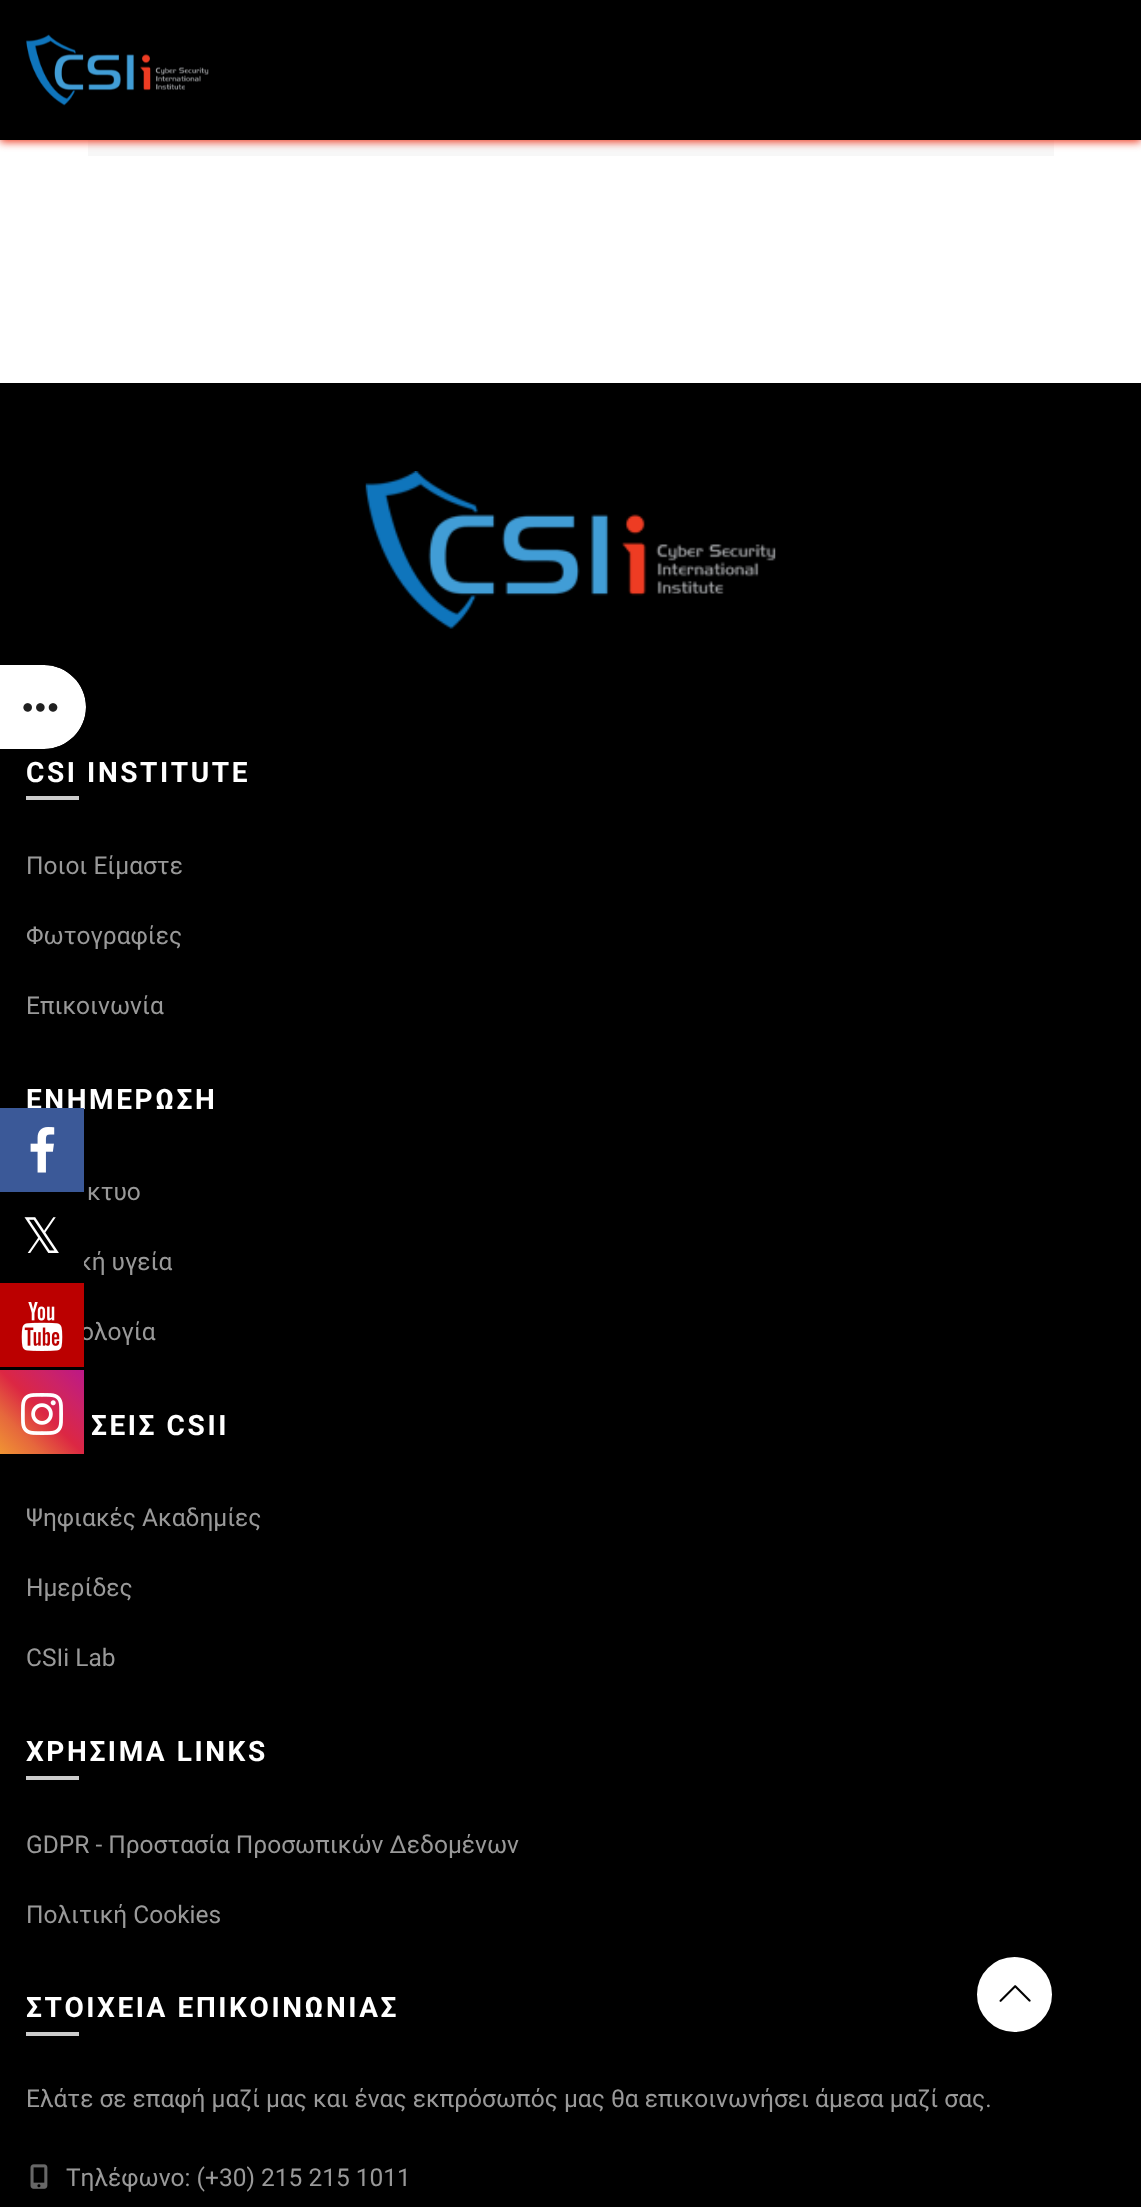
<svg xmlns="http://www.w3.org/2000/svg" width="1141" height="2207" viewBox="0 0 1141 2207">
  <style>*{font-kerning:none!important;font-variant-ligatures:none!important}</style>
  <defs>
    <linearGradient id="g1" gradientUnits="userSpaceOnUse" x1="0" y1="1454" x2="84" y2="1370"><stop offset="0" stop-color="#f09433"/><stop offset="0.25" stop-color="#e6683c"/><stop offset="0.5" stop-color="#dc2743"/><stop offset="0.75" stop-color="#cc2366"/><stop offset="1" stop-color="#bc1888"/></linearGradient>
  </defs>
  <rect width="100%" height="100%" fill="#fff"/>
  <path d="M0 383h1141v1824H0z" fill="#000"/>
  <path d="M0 665H44C67 665 86 684 86 707C86 730 67 749 44 749H0Z" fill="#fff"/>
  <path d="M0 663H44C68 663 88 683 88 707C88 731 68 751 44 751H0ZM0 665H44C67 665 86 684 86 707C86 730 67 749 44 749H0Z" fill="#000" fill-rule="evenodd"/>
  <image x="23" y="703" width="35" height="9" href="img/1.png"/>
  <path d="M88 140h966v16H88z" fill="#f7f7f7"/>
  <path d="M0 2h1141v140H0z" fill="#ee3c23" filter="blur(4.5px)"/>
  <path d="M0 0h1141v140H0z" fill="#000"/>
  <image x="26" y="34" width="183" height="72" href="img/2.png"/>
  <image x="365" y="471" width="411" height="158" href="img/3.png"/>
  <path d="M26 796h53v4H26z" fill="#ccc"/>
  <path d="M26 1776h53v4H26z" fill="#ccc"/>
  <path d="M26 2032h53v4H26z" fill="#ccc"/>
  <image x="30" y="2164" width="18" height="25" href="img/4.png"/>
  <path d="M0 1370h84v84H0z" fill="url(#g1)"/>
  <image x="21" y="1393" width="42" height="42" href="img/7.png"/>
  <circle cx="1014.5" cy="1994.5" r="38.5" fill="#fff" stroke="#000" stroke-width="2"/>
  <image x="999" y="1985" width="32" height="17" href="img/8.png"/>
  <text x="26" y="782" font-family="Roboto" font-size="28" font-weight="bold" letter-spacing="2.6" fill="#fff">CSI INSTITUTE</text>
  <g font-family="Roboto" font-size="24.5" fill="#999">
    <text x="26" y="874">Ποιοι Είμαστε</text>
    <text x="26" y="944">Φωτογραφίες</text>
    <text x="26" y="1014">Επικοινωνία</text>
  </g>
  <text x="26" y="1109" font-family="Roboto" font-size="28" font-weight="bold" letter-spacing="2.6" fill="#fff">ΕΝΗΜΕΡΩΣΗ</text>
  <g font-family="Roboto" font-size="24.5" fill="#999">
    <text x="87" y="1200">κτυο</text>
    <text x="78" y="1270">κή υγεία</text>
    <text x="80" y="1340">ολογία</text>
  </g>
  <text x="91" y="1435" font-family="Roboto" font-size="28" font-weight="bold" letter-spacing="2.6" fill="#fff">ΣΕΙΣ CSII</text>
  <g font-family="Roboto" font-size="24.5" fill="#999">
    <text x="26" y="1526">Ψηφιακές Ακαδημίες</text>
    <text x="26" y="1596">Ημερίδες</text>
    <text x="26" y="1666">CSIi Lab</text>
  </g>
  <text x="26" y="1761" font-family="Roboto" font-size="28" font-weight="bold" letter-spacing="2.6" fill="#fff">ΧΡΗΣΙΜΑ LINKS</text>
  <g font-family="Roboto" font-size="24.5" fill="#999">
    <text x="26" y="1853">GDPR - Προστασία Προσωπικών Δεδομένων</text>
    <text x="26" y="1923">Πολιτική Cookies</text>
  </g>
  <text x="26" y="2017" font-family="Roboto" font-size="28" font-weight="bold" letter-spacing="2.6" fill="#fff">ΣΤΟΙΧΕΙΑ ΕΠΙΚΟΙΝΩΝΙΑΣ</text>
  <g font-family="Roboto" font-size="24.5" fill="#999">
    <text x="26" y="2107">Ελάτε σε επαφή μαζί μας και ένας εκπρόσωπός μας θα επικοινωνήσει άμεσα μαζί σας.</text>
    <text x="66" y="2186">Τηλέφωνο: (+30) 215 215 1011</text>
  </g>
  <path d="M0 1108h84v84H0z" fill="#3b5998"/>
  <image x="30" y="1127" width="25" height="46" href="img/5.png"/>
  <path d="M79 1257h5v13H79z" fill="#000"/>
  <text x="22" y="1253" font-family="DejaVu Sans" font-size="49" fill="#fff">𝕏</text>
  <path d="M0 1283h84v84H0z" fill="#b00"/>
  <image x="21" y="1302" width="42" height="49" href="img/6.png"/>
</svg>
